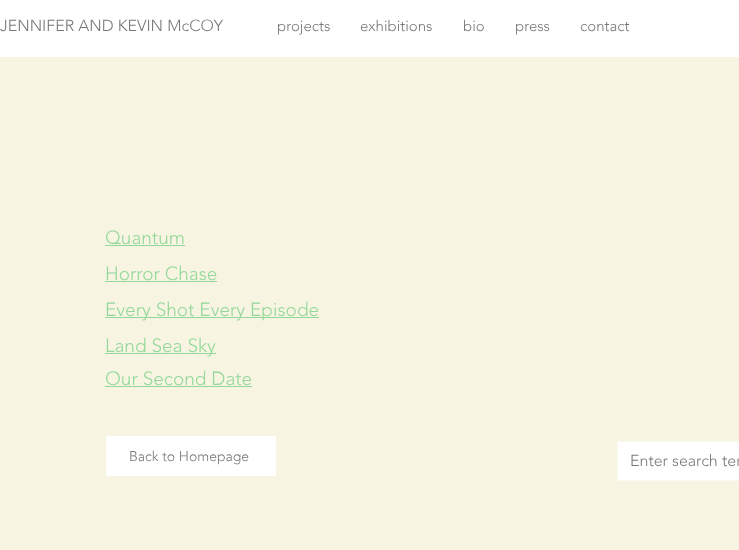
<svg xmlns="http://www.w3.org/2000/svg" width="739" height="550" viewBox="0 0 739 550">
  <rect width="100%" height="100%" fill="#f7f5e1"/>
  <path d="M0 0h739v57H0z" fill="#fff"/>
  <path d="M105 245h80v1H105z" fill="#93d89a"/>
  <path d="M105 281h112v1H105z" fill="#93d89a"/>
  <path d="M105 317h214v1H105z" fill="#93d89a"/>
  <path d="M105 353h111v1H105z" fill="#93d89a"/>
  <path d="M105 386h147v1H105z" fill="#93d89a"/>
  <path d="M106 436h170v40H106z" fill="#fff"/>
  <path d="M617.5 441.5h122v39H617.5z" fill="none" stroke="#fbfaf1"/>
  <path d="M618 442h121v38H618z" fill="#fff"/>
  <text x="0" y="31" font-family="'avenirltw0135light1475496'" font-size="16" font-weight="300" fill="#787878">JENNIFER AND KEVIN McCOY</text>
  <g font-family="'avenirltw0135light1475496'" font-size="15" font-weight="300" fill="#787878">
    <text x="277" y="31">projects</text>
    <text x="360" y="31">exhibitions</text>
    <text x="463" y="31">bio</text>
    <text x="515" y="31">press</text>
    <text x="580" y="31">contact</text>
  </g>
  <g font-family="'avenirltw0135light1475496'" font-size="19" font-weight="300" fill="#93d89a">
    <text x="105" y="244">Quantum</text>
    <text x="105" y="280">Horror Chase</text>
    <text x="105" y="316">Every Shot Every Episode</text>
    <text x="105" y="352">Land Sea Sky</text>
    <text x="105" y="385">Our Second Date</text>
  </g>
  <text x="129" y="461" font-family="'avenirltw0135light1475496'" font-size="14" font-weight="300" fill="#787878">Back to Homepage</text>
  <text x="630" y="466" font-family="'avenirltw0135light1475496'" font-size="16" font-weight="300" fill="#787878">Enter search ter</text>
</svg>
